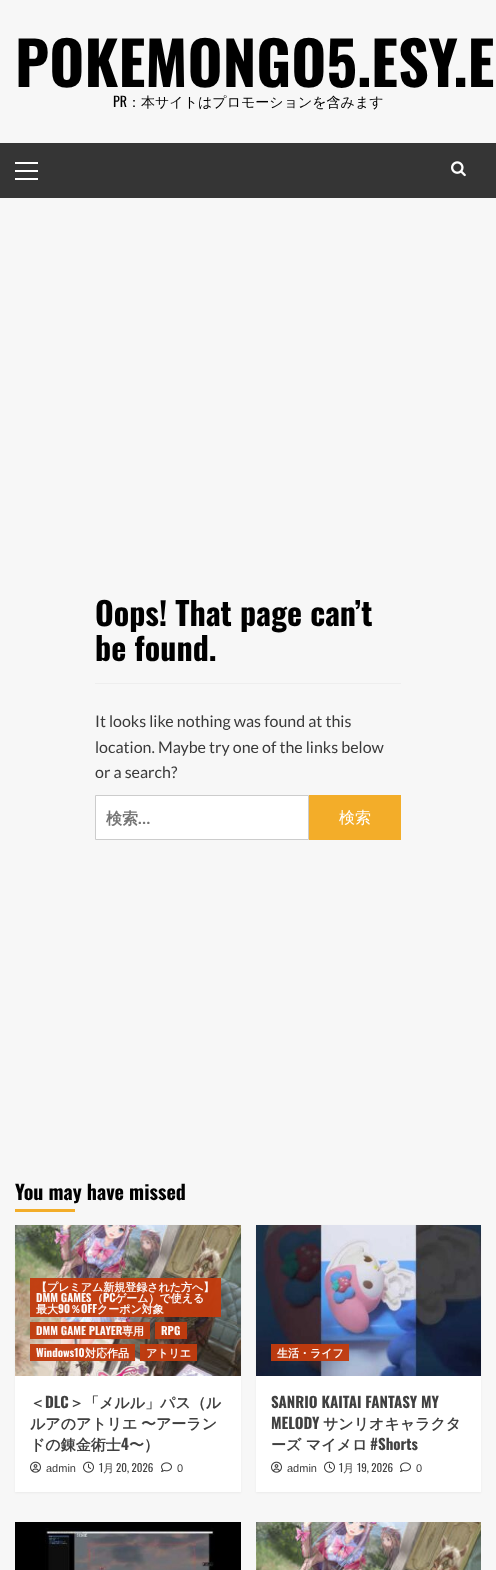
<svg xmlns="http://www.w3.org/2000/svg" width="496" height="1570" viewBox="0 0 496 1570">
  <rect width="100%" height="100%" fill="#f7f7f7"/>
  <path d="M0 143h496v55H0z" fill="#353535"/>
  <path d="M15 170h23v2H15z" fill="#fff"/>
  <path d="M15 162h23v2H15z" fill="#fff"/>
  <path d="M15 178h23v2H15z" fill="#fff"/>
  <image x="451" y="161" width="15" height="16" href="img/1.png"/>
  <path d="M95 683h306v1H95z" fill="#eee"/>
  <path d="M95.5 795.5h213v44H95.5z" fill="#fff" stroke="#ccc"/>
  <path d="M309 795h92v45H309z" fill="#f3ad29"/>
  <path d="M15 1209h60v3H15z" fill="#f3ad29"/>
  <path d="M15 1226h226v267H15z" fill="#0000000d" filter="blur(1px)"/>
  <path d="M15 1376h226v116H15z" fill="#fff"/>
  <image x="15" y="1225" width="226" height="151" href="img/2.png"/>
  <path d="M30 1278h191v39H30z" fill="#c23b0ef5"/>
  <path d="M30 1322h120v17H30z" fill="#c23b0ef5"/>
  <path d="M155 1322h32v17H155z" fill="#c23b0ef5"/>
  <path d="M30 1344h105v17H30z" fill="#c23b0ef5"/>
  <path d="M140 1344h57v17H140z" fill="#c23b0ef5"/>
  <image x="30" y="1461" width="11" height="12" href="img/3.png"/>
  <image x="83" y="1461" width="11" height="12" href="img/4.png"/>
  <image x="161" y="1462" width="11" height="10" href="img/5.png"/>
  <path d="M256 1226h225v267H256z" fill="#0000000d" filter="blur(1px)"/>
  <path d="M256 1376h225v116H256z" fill="#fff"/>
  <image x="256" y="1225" width="225" height="151" href="img/6.png"/>
  <path d="M271 1344h78v17H271z" fill="#c23b0ef5"/>
  <image x="271" y="1461" width="11" height="12" href="img/3.png"/>
  <image x="324" y="1461" width="11" height="12" href="img/4.png"/>
  <image x="400" y="1462" width="11" height="10" href="img/5.png"/>
  <image x="15" y="1522" width="226" height="48" href="img/7.png"/>
  <image x="256" y="1522" width="225" height="48" href="img/8.png"/>
  <text x="15" y="87" font-family="Oswald" font-size="60" font-weight="bold" fill="#000">POKEMONGO5.ESY.E</text>
  <text x="113" y="107" font-family="Oswald" font-size="14" fill="#000">PR</text>
  <text x="127" y="107" font-family="WenQuanYi Zen Hei" font-size="14" font-weight="500" fill="#000">：本サイトはプロモーションを含みます</text>
  <g font-family="Oswald" font-size="32" font-weight="bold" fill="#000">
    <text x="95" y="626">Oops! That page can’t</text>
    <text x="95" y="661">be found.</text>
  </g>
  <g font-family="Lato" font-size="16" fill="#3a3a3a">
    <text x="95" y="727">It looks like nothing was found at this</text>
    <text x="95" y="753">location. Maybe try one of the links below</text>
    <text x="95" y="778">or a search?</text>
  </g>
  <text x="106" y="824" font-family="WenQuanYi Zen Hei" font-size="16" font-weight="bold" fill="#757575">検索</text>
  <text x="138" y="824" font-family="Lato" font-size="16" font-weight="bold" fill="#757575">…</text>
  <text x="339" y="823" font-family="WenQuanYi Zen Hei" font-size="16" font-weight="500" fill="#fff">検索</text>
  <text x="15" y="1200" font-family="Oswald" font-size="20" font-weight="bold" fill="#000">You may have missed</text>
  <text x="36" y="1291" font-family="WenQuanYi Zen Hei" font-size="11" font-weight="bold" fill="#fcf7f6">【プレミアム新規登録された方へ】</text>
  <text x="36" y="1302" font-family="Oswald" font-size="11" font-weight="bold" fill="#fcf7f6">DMM GAMES</text>
  <text x="92" y="1302" font-family="WenQuanYi Zen Hei" font-size="11" font-weight="bold" fill="#fcf7f6">（</text>
  <text x="103" y="1302" font-family="Oswald" font-size="11" font-weight="bold" fill="#fcf7f6">PC</text>
  <g font-family="WenQuanYi Zen Hei" font-size="11" font-weight="bold" fill="#fcf7f6">
    <text x="115" y="1302">ゲーム）で使える</text>
    <text x="36" y="1313">最大</text>
  </g>
  <text x="58" y="1313" font-family="Oswald" font-size="11" font-weight="bold" fill="#fcf7f6">90</text>
  <text x="70" y="1313" font-family="WenQuanYi Zen Hei" font-size="11" font-weight="bold" fill="#fcf7f6">％</text>
  <text x="81" y="1313" font-family="Oswald" font-size="11" font-weight="bold" fill="#fcf7f6">OFF</text>
  <text x="97" y="1313" font-family="WenQuanYi Zen Hei" font-size="11" font-weight="bold" fill="#fcf7f6">クーポン対象</text>
  <text x="36" y="1335" font-family="Oswald" font-size="11" font-weight="bold" fill="#fcf7f6">DMM GAME PLAYER</text>
  <text x="122" y="1335" font-family="WenQuanYi Zen Hei" font-size="11" font-weight="bold" fill="#fcf7f6">専用</text>
  <g font-family="Oswald" font-size="11" font-weight="bold" fill="#fcf7f6">
    <text x="161" y="1335">RPG</text>
    <text x="36" y="1357">Windows10</text>
  </g>
  <g font-family="WenQuanYi Zen Hei" font-size="11" font-weight="bold" fill="#fcf7f6">
    <text x="85" y="1357">対応作品</text>
    <text x="146" y="1357">アトリエ</text>
  </g>
  <text x="30" y="1408" font-family="WenQuanYi Zen Hei" font-size="15" font-weight="bold" fill="#404040">＜</text>
  <text x="45" y="1408" font-family="Oswald" font-size="15" font-weight="bold" fill="#404040">DLC</text>
  <g font-family="WenQuanYi Zen Hei" font-size="15" font-weight="bold" fill="#404040">
    <text x="69" y="1408">＞「メルル」パス（ル</text>
    <text x="30" y="1429" word-spacing="-1">ルアのアトリエ 〜アーラン</text>
    <text x="30" y="1450">ドの錬金術士</text>
  </g>
  <text x="121" y="1450" font-family="Oswald" font-size="15" font-weight="bold" fill="#404040">4</text>
  <text x="129" y="1450" font-family="WenQuanYi Zen Hei" font-size="15" font-weight="bold" fill="#404040">〜）</text>
  <text x="46" y="1472" font-family="Liberation Sans" font-size="11" fill="#404040">admin</text>
  <text x="99" y="1472" font-family="Oswald" font-size="11" fill="#404040">1</text>
  <text x="103" y="1472" font-family="WenQuanYi Zen Hei" font-size="11" font-weight="500" fill="#404040">月</text>
  <text x="116" y="1472" font-family="Oswald" font-size="11" fill="#404040">20, 2026</text>
  <text x="177" y="1472" font-family="Liberation Sans" font-size="11" fill="#404040">0</text>
  <text x="277" y="1357" font-family="WenQuanYi Zen Hei" font-size="11" font-weight="bold" fill="#fcf7f6">生活・ライフ</text>
  <g font-family="Oswald" font-size="15" font-weight="bold" fill="#404040">
    <text x="271" y="1408">SANRIO KAITAI FANTASY MY</text>
    <text x="271" y="1429">MELODY</text>
  </g>
  <g font-family="WenQuanYi Zen Hei" font-size="15" font-weight="bold" fill="#404040">
    <text x="323" y="1429">サンリオキャラクタ</text>
    <text x="271" y="1450">ーズ マイメロ</text>
  </g>
  <text x="370" y="1450" font-family="Oswald" font-size="15" font-weight="bold" fill="#404040">#Shorts</text>
  <text x="287" y="1472" font-family="Liberation Sans" font-size="11" fill="#404040">admin</text>
  <text x="339" y="1472" font-family="Oswald" font-size="11" fill="#404040">1</text>
  <text x="343" y="1472" font-family="WenQuanYi Zen Hei" font-size="11" font-weight="500" fill="#404040">月</text>
  <text x="357" y="1472" font-family="Oswald" font-size="11" fill="#404040">19, 2026</text>
  <text x="416" y="1472" font-family="Liberation Sans" font-size="11" fill="#404040">0</text>
</svg>
